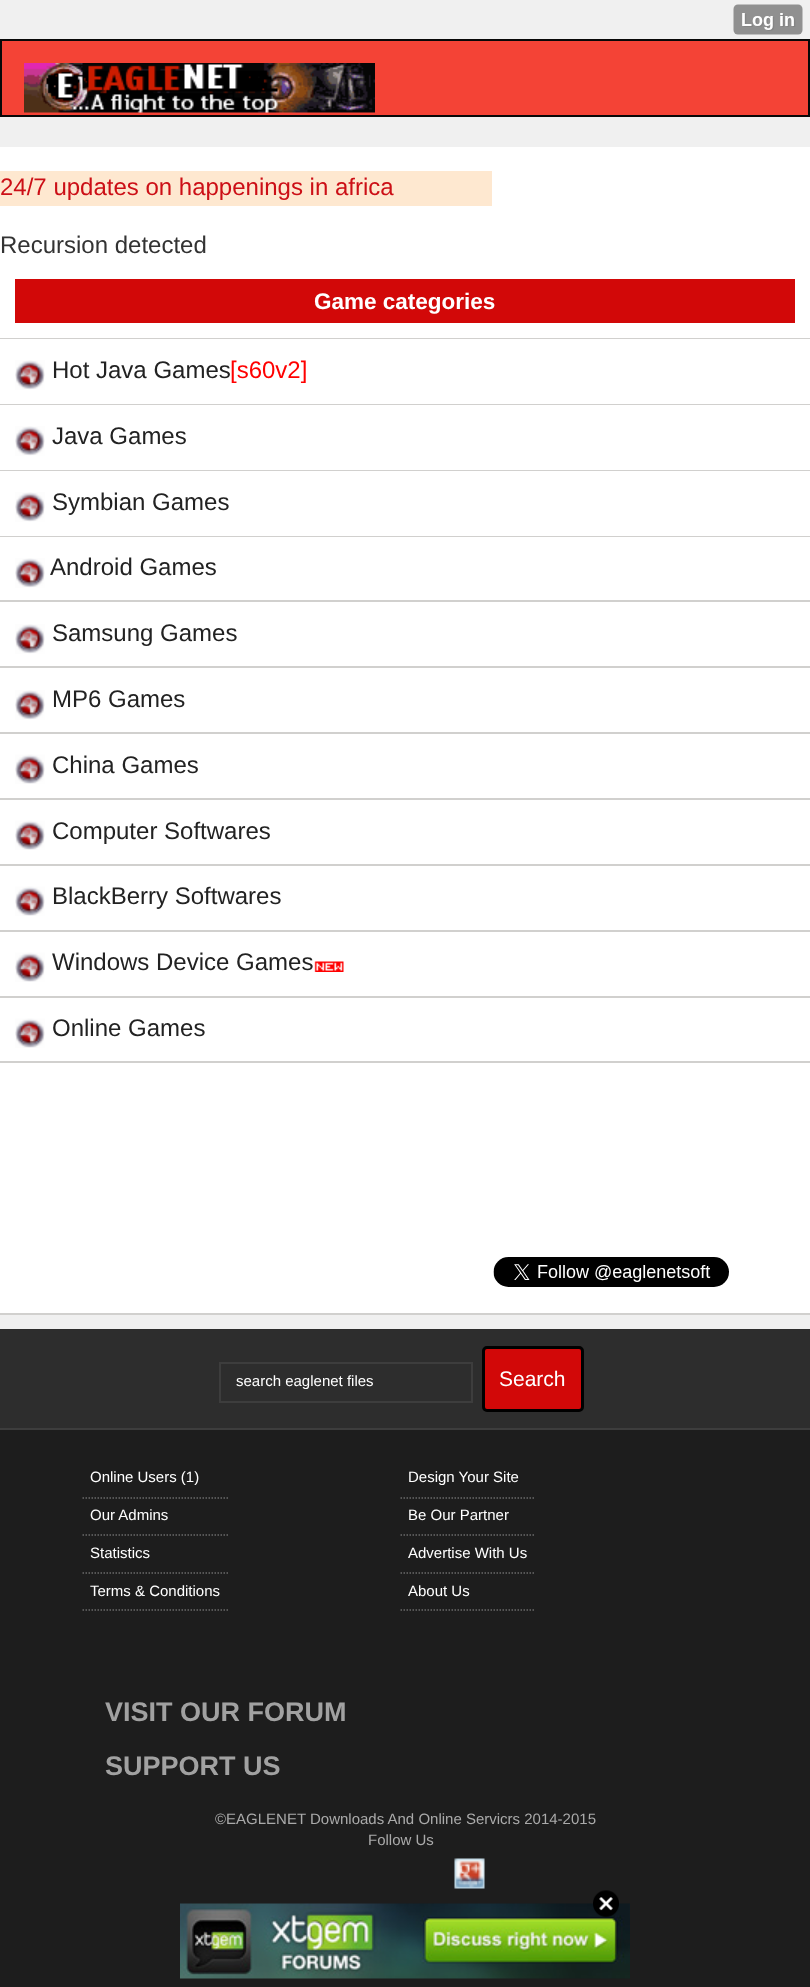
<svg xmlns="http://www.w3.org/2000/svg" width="810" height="1987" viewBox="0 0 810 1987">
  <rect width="100%" height="100%" fill="#f0f0f0"/>
  <path d="M1 40h808v76H1z" fill="#f44336" stroke="#080808" stroke-width="2"/>
  <image x="24" y="63" width="351" height="50" href="img/1.png"/>
  <path d="M0 147h810v1166H0z" fill="#fff"/>
  <path d="M0 1313h810v2H0z" fill="#d1d0ce"/>
  <image x="493" y="1257" width="236" height="30" href="img/2.png"/>
  <path d="M0 171h492v35H0z" fill="#fee8d0"/>
  <path d="M0 338h810v1H0z" fill="#d1d0ce"/>
  <path d="M15 279h780v44H15z" fill="#d20808"/>
  <path d="M0 404h810v1H0z" fill="#d1d0ce"/>
  <image x="15" y="360" width="30" height="30" href="img/3.png"/>
  <path d="M0 470h810v1H0z" fill="#d1d0ce"/>
  <image x="15" y="426" width="30" height="30" href="img/3.png"/>
  <path d="M0 536h810v1H0z" fill="#d1d0ce"/>
  <image x="15" y="492" width="30" height="30" href="img/3.png"/>
  <path d="M0 600h810v2H0z" fill="#d1d0ce"/>
  <image x="15" y="558" width="30" height="30" href="img/3.png"/>
  <path d="M0 666h810v2H0z" fill="#d1d0ce"/>
  <image x="15" y="624" width="30" height="30" href="img/3.png"/>
  <path d="M0 732h810v2H0z" fill="#d1d0ce"/>
  <image x="15" y="690" width="30" height="30" href="img/3.png"/>
  <path d="M0 798h810v2H0z" fill="#d1d0ce"/>
  <image x="15" y="754" width="30" height="30" href="img/4.png"/>
  <path d="M0 864h810v2H0z" fill="#d1d0ce"/>
  <image x="15" y="820" width="30" height="30" href="img/4.png"/>
  <path d="M0 930h810v2H0z" fill="#d1d0ce"/>
  <image x="15" y="886" width="30" height="30" href="img/4.png"/>
  <path d="M0 996h810v2H0z" fill="#d1d0ce"/>
  <image x="15" y="952" width="30" height="30" href="img/4.png"/>
  <image x="314" y="961" width="30" height="11" href="img/5.png"/>
  <path d="M0 1061h810v2H0z" fill="#d1d0ce"/>
  <image x="15" y="1018" width="30" height="30" href="img/4.png"/>
  <path d="M0 1329h810v99H0z" fill="#2d2d2d"/>
  <path d="M220 1363h252v39H220z" fill="none" stroke="#3d3d3d" stroke-width="2"/>
  <rect x="483.5" y="1347.5" width="99" height="63" rx="3.5" fill="#d20808" stroke="#000" stroke-width="3"/>
  <path d="M0 1430h810v557H0z" fill="#1d1d1d"/>
  <path d="M0 1428h810v2H0z" fill="#3d3d3d"/>
  <image x="733" y="4" width="70" height="31" href="img/6.png"/>
  <path d="M82.5 1498H228" fill="none" stroke="#696969" stroke-width="1.5" stroke-dasharray="1.5 1.5"/>
  <path d="M82.5 1535H228" fill="none" stroke="#696969" stroke-width="1.5" stroke-dasharray="1.5 1.5"/>
  <path d="M82.5 1573H228" fill="none" stroke="#696969" stroke-width="1.5" stroke-dasharray="1.5 1.5"/>
  <path d="M82.5 1610H228" fill="none" stroke="#696969" stroke-width="1.5" stroke-dasharray="1.5 1.5"/>
  <path d="M400.5 1498H534" fill="none" stroke="#696969" stroke-width="1.5" stroke-dasharray="1.5 1.5"/>
  <path d="M400.5 1535H534" fill="none" stroke="#696969" stroke-width="1.5" stroke-dasharray="1.5 1.5"/>
  <path d="M400.5 1573H534" fill="none" stroke="#696969" stroke-width="1.5" stroke-dasharray="1.5 1.5"/>
  <path d="M400.5 1610H534" fill="none" stroke="#696969" stroke-width="1.5" stroke-dasharray="1.5 1.5"/>
  <image x="454" y="1858" width="31" height="31" href="img/7.png"/>
  <image x="180" y="1903" width="450" height="76" href="img/9.png"/>
  <image x="593" y="1890" width="26" height="27" href="img/8.png"/>
  <text x="0" y="195" font-family="Liberation Sans" font-size="24" fill="#cc0f16">24/7 updates on happenings in africa</text>
  <text x="0" y="253" font-family="Liberation Sans" font-size="24" fill="#333">Recursion detected</text>
  <text x="314" y="309" font-family="Liberation Sans" font-size="22.5" font-weight="bold" fill="#fff">Game categories</text>
  <text x="52" y="378" font-family="Liberation Sans" font-size="24" fill="#222">Hot Java Games</text>
  <text x="230" y="378" font-family="Liberation Sans" font-size="24" fill="#f00">[s60v2]</text>
  <g font-family="Liberation Sans" font-size="24" fill="#222">
    <text x="52" y="444">Java Games</text>
    <text x="52" y="510">Symbian Games</text>
    <text x="50" y="575">Android Games</text>
    <text x="52" y="641">Samsung Games</text>
    <text x="52" y="707">MP6 Games</text>
    <text x="52" y="773">China Games</text>
    <text x="52" y="839">Computer Softwares</text>
    <text x="52" y="904">BlackBerry Softwares</text>
    <text x="52" y="970">Windows Device Games</text>
    <text x="52" y="1036">Online Games</text>
  </g>
  <text x="236" y="1386" font-family="Liberation Sans" font-size="15" fill="#fff">search eaglenet files</text>
  <text x="499" y="1386" font-family="Liberation Sans" font-size="21" fill="#fff">Search</text>
  <g font-family="Liberation Sans" font-size="15" fill="#fff">
    <text x="90" y="1482">Online Users (1)</text>
    <text x="90" y="1520">Our Admins</text>
    <text x="90" y="1558">Statistics</text>
    <text x="90" y="1596">Terms &amp; Conditions</text>
    <text x="408" y="1482">Design Your Site</text>
    <text x="408" y="1520">Be Our Partner</text>
    <text x="408" y="1558">Advertise With Us</text>
    <text x="408" y="1596">About Us</text>
  </g>
  <g font-family="Liberation Sans" font-size="27" font-weight="bold" fill="#a1a1a1">
    <text x="105" y="1721">VISIT OUR FORUM</text>
    <text x="105" y="1775">SUPPORT US</text>
  </g>
  <g font-family="Liberation Sans" font-size="15" fill="#aaa">
    <text x="215" y="1824">©EAGLENET Downloads And Online Servicrs 2014-2015</text>
    <text x="368" y="1845">Follow Us</text>
  </g>
</svg>
